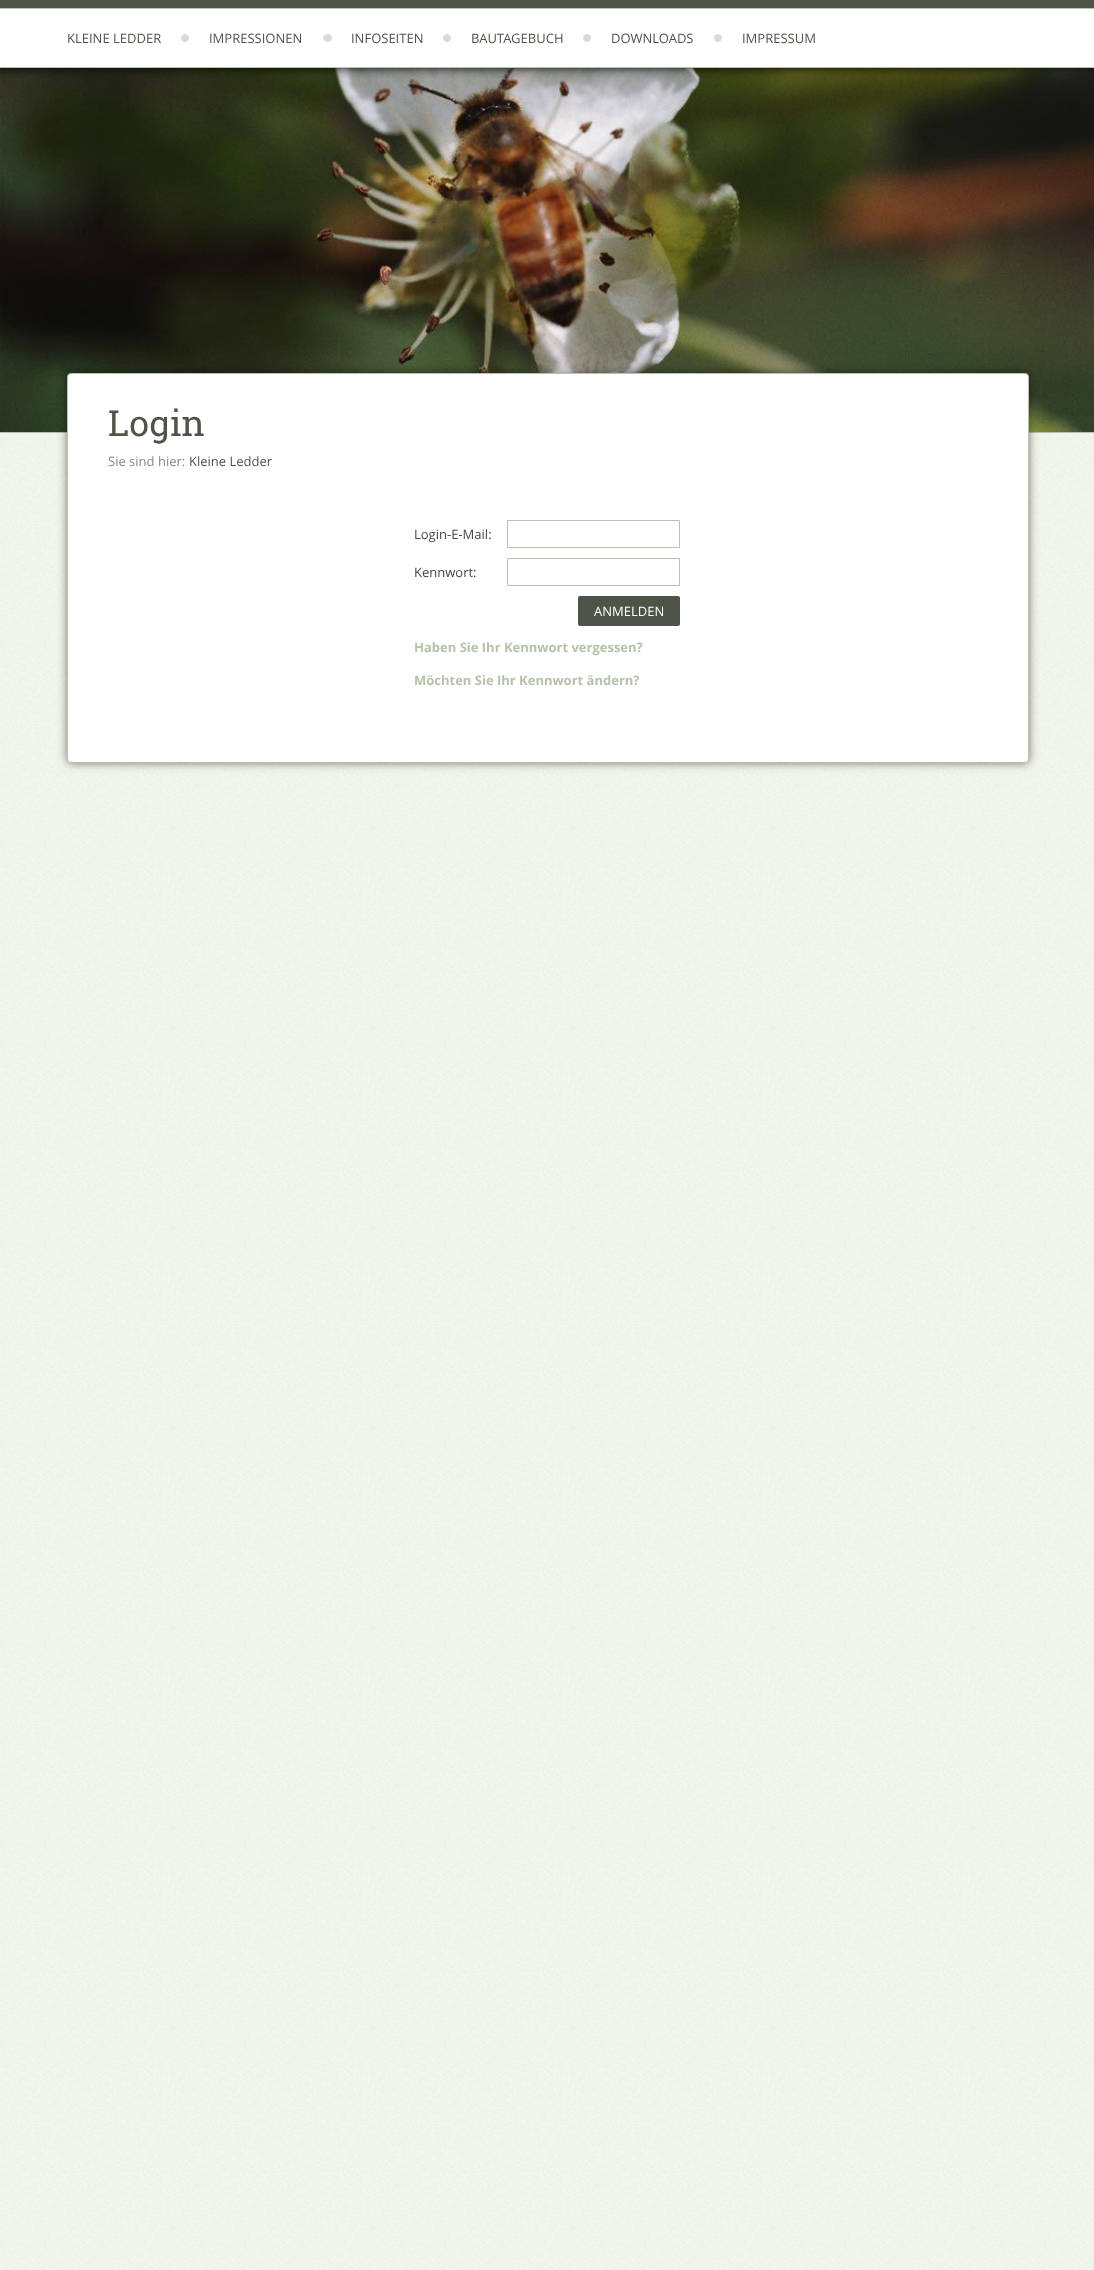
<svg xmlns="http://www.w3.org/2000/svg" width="1094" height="2270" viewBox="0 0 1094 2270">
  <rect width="100%" height="100%" fill="#f3f7ed"/>
  <image x="0" y="433" width="1094" height="1837" href="img/1.png"/>
  <path d="M0 0h1094v8H0z" fill="#4f5449"/>
  <path d="M0 9h1094v58H0z" fill="#fff"/>
  <path d="M0 8h1094v1H0z" fill="#b6c2a9"/>
  <path d="M0 67h1094v1H0z" fill="#b6c2a9"/>
  <image x="181" y="34" width="8" height="8" href="img/2.png"/>
  <image x="323" y="34" width="9" height="8" href="img/3.png"/>
  <image x="443" y="34" width="8" height="8" href="img/2.png"/>
  <image x="583" y="34" width="8" height="8" href="img/2.png"/>
  <image x="714" y="34" width="8" height="8" href="img/2.png"/>
  <path d="M0 432h1094v1H0z" fill="#b6c2a9"/>
  <image x="0" y="68" width="1094" height="364" href="img/4.png"/>
  <image x="0" y="68" width="1094" height="10" href="img/5.png"/>
  <rect x="67" y="373" width="962" height="390" rx="4" fill="#00000080" filter="blur(5px)"/>
  <rect x="67.5" y="373.5" width="961" height="389" rx="3.5" fill="#fff" stroke="#b6c2a9"/>
  <path d="M507.5 520.5h172v27H507.5z" fill="none" stroke="#b6c2a9"/>
  <path d="M507.5 558.5h172v27H507.5z" fill="none" stroke="#b6c2a9"/>
  <rect x="578" y="596" width="102" height="30" rx="2" fill="#4f5449"/>
  <g font-family="Open Sans" font-size="13" fill="#4f5449">
    <text x="67" y="43">KLEINE LEDDER</text>
    <text x="209" y="43">IMPRESSIONEN</text>
    <text x="351" y="43">INFOSEITEN</text>
    <text x="471" y="43">BAUTAGEBUCH</text>
    <text x="611" y="43">DOWNLOADS</text>
    <text x="742" y="43">IMPRESSUM</text>
  </g>
  <text x="108" y="436" font-family="Roboto Slab" font-size="36" fill="#4f5449">Login</text>
  <text x="108" y="466" font-family="Open Sans" font-size="13" fill="#888">Sie sind hier:</text>
  <text x="189" y="466" font-family="Open Sans" font-size="13" fill="#4f5449">Kleine Ledder</text>
  <g font-family="Open Sans" font-size="13" fill="#464646">
    <text x="414" y="539">Login-E-Mail:</text>
    <text x="414" y="577">Kennwort:</text>
  </g>
  <text x="594" y="616" font-family="Open Sans" font-size="13" fill="#fff">ANMELDEN</text>
  <g font-family="Open Sans" font-size="13" font-weight="bold" fill="#b6c2a9">
    <text x="414" y="652">Haben Sie Ihr Kennwort vergessen?</text>
    <text x="414" y="685">Möchten Sie Ihr Kennwort ändern?</text>
  </g>
</svg>
